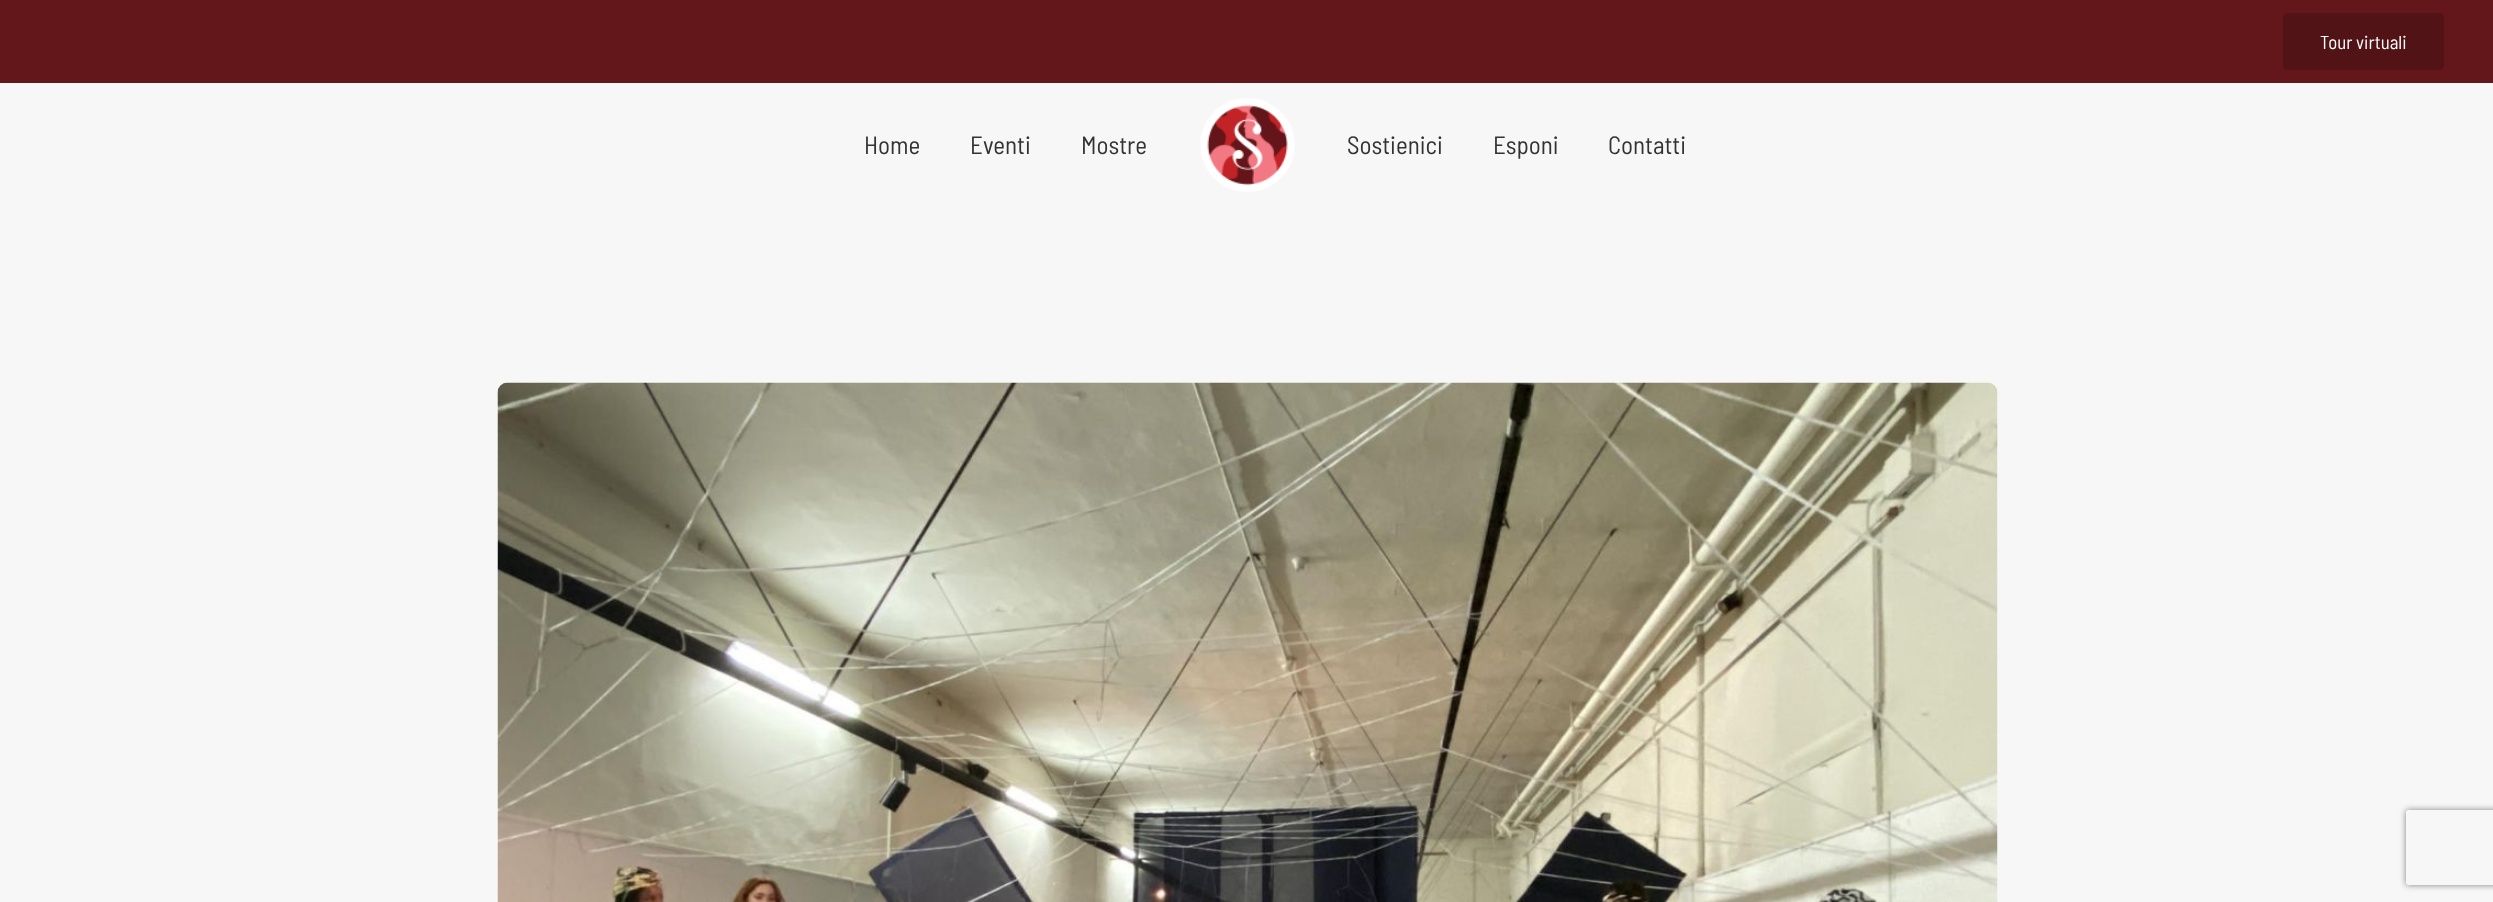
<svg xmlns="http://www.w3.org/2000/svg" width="2493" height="902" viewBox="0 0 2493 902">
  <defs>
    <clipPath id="clip1"><path d="M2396 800H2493V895H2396ZM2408.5 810H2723.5C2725 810 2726 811 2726 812.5V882.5C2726 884 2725 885 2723.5 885H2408.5C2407 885 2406 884 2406 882.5V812.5C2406 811 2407 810 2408.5 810Z" clip-rule="evenodd"/></clipPath>
  </defs>
  <rect width="100%" height="100%" fill="#f7f7f7"/>
  <path d="M0 0h2493v83H0z" fill="#63171a"/>
  <rect x="2283" y="13" width="161" height="57" rx="5" fill="#521316"/>
  <image x="1200" y="98" width="95" height="94" href="img/1.png"/>
  <image x="497" y="382" width="1501" height="520" href="img/2.png"/>
  <g clip-path="url(#clip1)">
    <rect x="2406" y="810" width="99" height="75" rx="2.5" fill="#808080" filter="blur(3px)"/>
  </g>
  <text x="2320" y="49" font-family="Barlow Semi Condensed" font-size="18.75" fill="#fff">Tour virtuali</text>
  <g font-family="Barlow Semi Condensed" font-size="25" fill="#333">
    <text x="864" y="154">Home</text>
    <text x="970" y="154">Eventi</text>
    <text x="1081" y="154">Mostre</text>
    <text x="1347" y="154">Sostienici</text>
    <text x="1493" y="154">Esponi</text>
    <text x="1608" y="154">Contatti</text>
  </g>
</svg>
